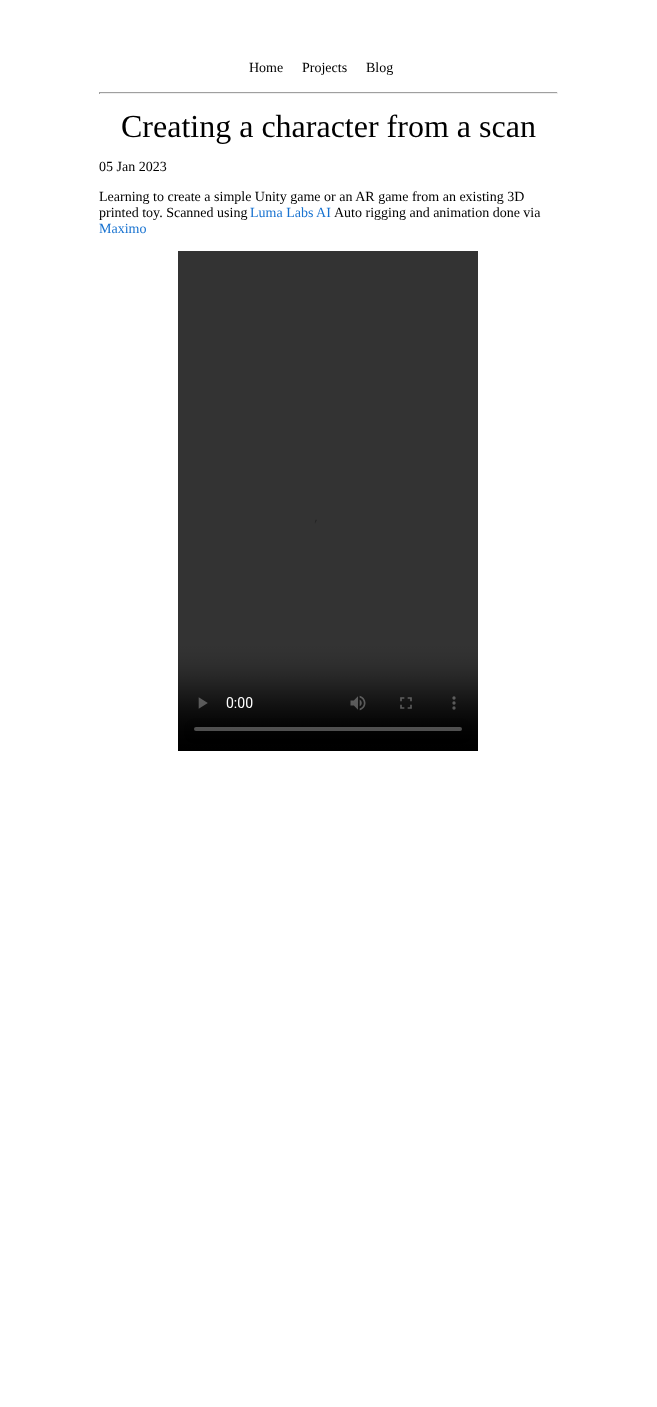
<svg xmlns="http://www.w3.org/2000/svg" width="657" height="1407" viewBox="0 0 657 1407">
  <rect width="100%" height="100%" fill="#fff"/>
  <path d="M99 92h459v1H99z" fill="#9f9f9f"/>
  <path d="M557 92h1v2H557z" fill="#eee"/>
  <path d="M99 93h459v1H99z" fill="#eee"/>
  <path d="M99 92h1v2H99z" fill="#9f9f9f"/>
  <image x="178" y="251" width="300" height="500" href="img/1.png"/>
  <g font-family="Liberation Serif" font-size="14" fill="#000">
    <text x="249" y="72">Home</text>
    <text x="302" y="72">Projects</text>
    <text x="366" y="72">Blog</text>
  </g>
  <text x="121" y="137" font-family="Liberation Serif" font-size="32" fill="#000">Creating a character from a scan</text>
  <g font-family="Liberation Serif" font-size="14" fill="#000">
    <text x="99" y="171">05 Jan 2023</text>
    <text x="99" y="201">Learning to create a simple Unity game or an AR game from an existing 3D</text>
    <text x="99" y="217">printed toy. Scanned using</text>
  </g>
  <text x="250" y="217" font-family="Liberation Serif" font-size="14" fill="#1772d0">Luma Labs AI</text>
  <text x="334" y="217" font-family="Liberation Serif" font-size="14" fill="#000">Auto rigging and animation done via</text>
  <text x="99" y="233" font-family="Liberation Serif" font-size="14" fill="#1772d0">Maximo</text>
</svg>
